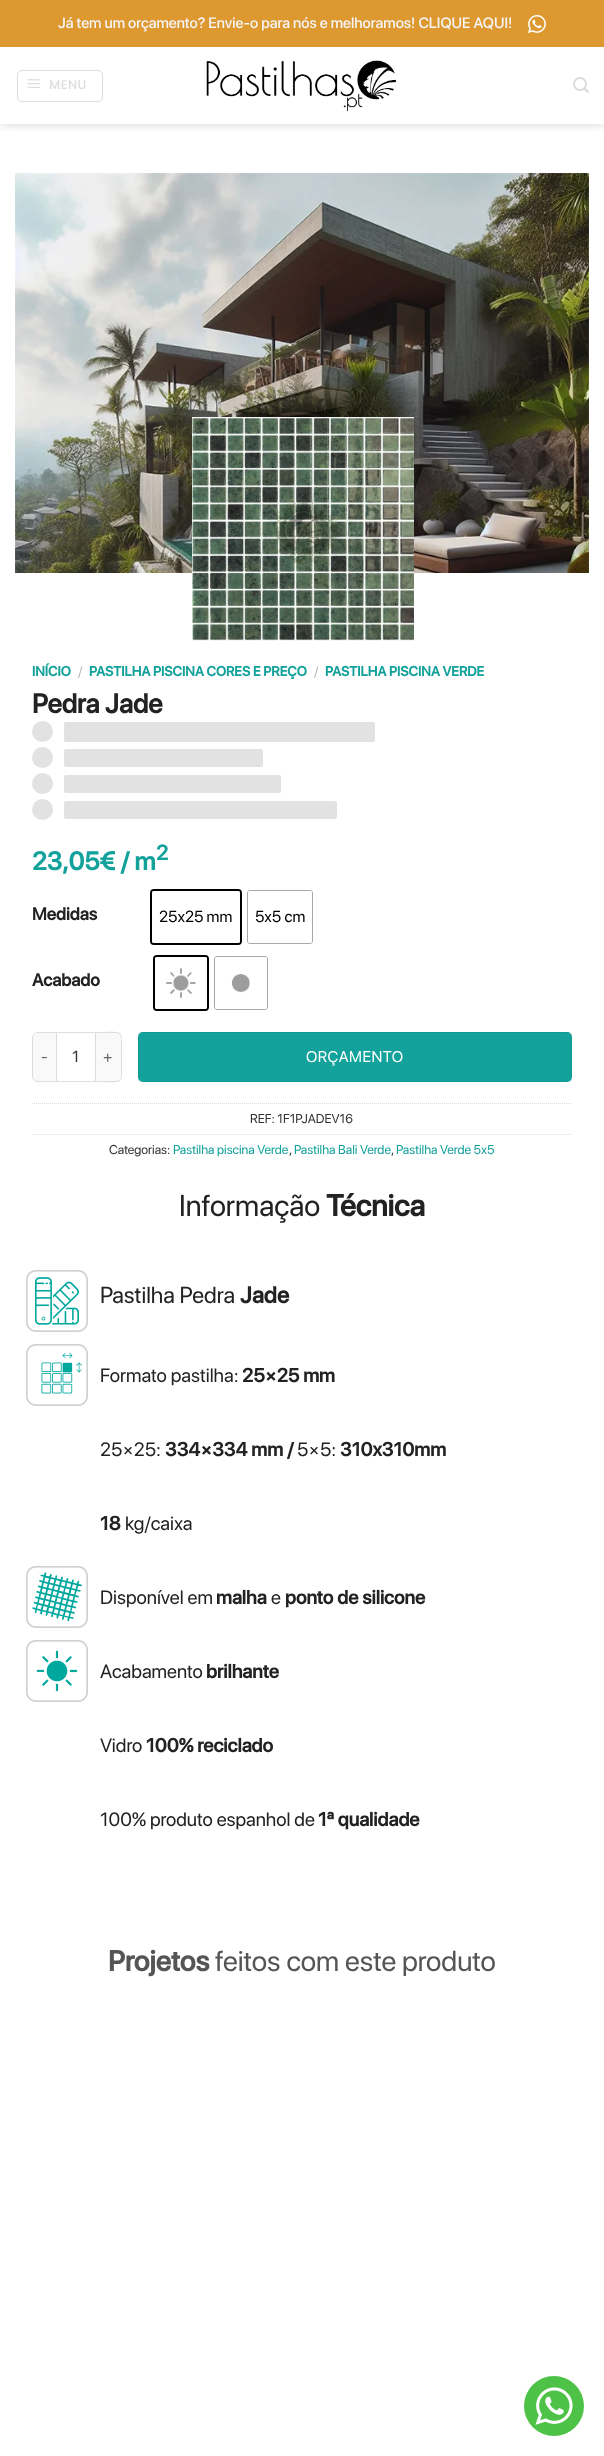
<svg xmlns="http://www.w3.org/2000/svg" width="604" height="2456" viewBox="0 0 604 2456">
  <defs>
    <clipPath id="clip1"><path d="M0 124h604v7H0z"/></clipPath>
  </defs>
  <rect width="100%" height="100%" fill="#fff"/>
  <g clip-path="url(#clip1)">
    <path d="M1 1h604v124H1z" fill="#00000026" filter="blur(5px)"/>
  </g>
  <path d="M0 0h604v47H0z" fill="#dd9830"/>
  <image x="528" y="15" width="18" height="18" href="img/1.png"/>
  <rect x="17.5" y="70.5" width="85" height="31" rx="4.5" fill="none" stroke="#ddd"/>
  <image x="27" y="79" width="13" height="9" href="img/2.png"/>
  <image x="206" y="60" width="190" height="52" href="img/3.png"/>
  <image x="573" y="77" width="16" height="16" href="img/4.png"/>
  <image x="15" y="173" width="574" height="400" href="img/5.png"/>
  <image x="192" y="417" width="222" height="224" href="img/6.png"/>
  <circle cx="42.5" cy="731.5" r="10.5" fill="#e2e2e2"/>
  <rect x="64" y="722" width="311" height="20" rx="2" fill="#e2e2e2"/>
  <circle cx="42.5" cy="757.5" r="10.5" fill="#e2e2e2"/>
  <rect x="64" y="749" width="199" height="18" rx="2" fill="#e2e2e2"/>
  <circle cx="42.5" cy="783.5" r="10.5" fill="#e2e2e2"/>
  <rect x="64" y="775" width="217" height="18" rx="2" fill="#e2e2e2"/>
  <circle cx="42.5" cy="809.5" r="10.5" fill="#e2e2e2"/>
  <rect x="64" y="801" width="273" height="18" rx="2" fill="#e2e2e2"/>
  <rect x="151" y="890" width="90" height="54" rx="3" fill="none" stroke="#000" stroke-width="2"/>
  <rect x="152" y="891" width="88" height="52" rx="2" fill="#fff"/>
  <rect x="247.5" y="890.5" width="65" height="53" rx="2.5" fill="none" stroke="#a8a8a8"/>
  <rect x="248" y="891" width="64" height="52" rx="2" fill="#fff"/>
  <rect x="154" y="956" width="54" height="54" rx="3" fill="none" stroke="#000" stroke-width="2"/>
  <rect x="155" y="957" width="52" height="52" rx="2" fill="#fff"/>
  <image x="166" y="968" width="30" height="30" href="img/7.png"/>
  <rect x="214.5" y="956.5" width="53" height="53" rx="2.5" fill="none" stroke="#a8a8a8"/>
  <rect x="215" y="957" width="52" height="52" rx="2" fill="#fff"/>
  <image x="231" y="974" width="19" height="19" href="img/8.png"/>
  <path d="M38 1032H56V1082H38C34.5 1082 32 1079.5 32 1076V1038C32 1034.5 34.5 1032 38 1032Z" fill="#f9f9f9"/>
  <path d="M38 1032H56V1082H38C35 1082 32 1079 32 1076V1038C32 1035 35 1032 38 1032ZM38 1033H56V1081H38C35 1081 33 1079 33 1076V1038C33 1035 35 1033 38 1033Z" fill="#ddd" fill-rule="evenodd"/>
  <path d="M56.5 1032.5h39v49H56.5z" fill="none" stroke="#ddd"/>
  <path d="M96 1032H116C119.5 1032 122 1034.5 122 1038V1076C122 1079.5 119.5 1082 116 1082H96Z" fill="#f9f9f9"/>
  <path d="M96 1032C125 1032 122 1027 122 1057C122 1087 125 1082 96 1082ZM96 1033H116C119 1033 121 1035 121 1038V1076C121 1079 119 1081 116 1081H96Z" fill="#ddd" fill-rule="evenodd"/>
  <rect x="138" y="1032" width="434" height="50" rx="5" fill="#12a19b"/>
  <path d="M138.5 1032.5h433v49H138.5z" fill="none" stroke="#0000000d"/>
  <path d="M32 1103.5H572" fill="none" stroke="#ddd" stroke-dasharray="1 1"/>
  <path d="M32 1134.5H572" fill="none" stroke="#ddd" stroke-dasharray="1 1"/>
  <image x="26" y="1270" width="62" height="62" href="img/9.png"/>
  <image x="26" y="1344" width="62" height="62" href="img/10.png"/>
  <image x="26" y="1566" width="62" height="62" href="img/11.png"/>
  <image x="26" y="1640" width="62" height="62" href="img/12.png"/>
  <circle cx="554" cy="2406" r="30" fill="#4dc247"/>
  <image x="535" y="2387" width="38" height="38" href="img/13.png"/>
  <text x="58" y="28" font-family="SF Pro Display" font-size="15" font-weight="500" fill="#f5f5f5">Já tem um orçamento? Envie-o para nós e melhoramos! CLIQUE AQUI!</text>
  <text x="49" y="89" font-family="Poppins" font-size="12.75" font-weight="500" letter-spacing="0.5" fill="#ddd">MENU</text>
  <text x="32" y="676" font-family="SF Pro Display" font-size="13.6" font-weight="bold" fill="#12a19b">INÍCIO</text>
  <text x="78" y="676" font-family="SF Pro Display" font-size="13.6" fill="#b2b2b2">/</text>
  <text x="89" y="676" font-family="SF Pro Display" font-size="13.6" font-weight="bold" fill="#12a19b">PASTILHA PISCINA CORES E PREÇO</text>
  <text x="314" y="676" font-family="SF Pro Display" font-size="13.6" fill="#b2b2b2">/</text>
  <text x="325" y="676" font-family="SF Pro Display" font-size="13.6" font-weight="bold" fill="#12a19b">PASTILHA PISCINA VERDE</text>
  <text x="32" y="713" font-family="SF Pro Display" font-size="27" font-weight="bold" fill="#222">Pedra Jade</text>
  <text x="32" y="870" font-family="SF Pro Display" font-size="25.5" font-weight="bold" fill="#12a19b">23,05€ / m</text>
  <text x="156" y="860" font-family="SF Pro Display" font-size="21" font-weight="bold" fill="#12a19b">2</text>
  <text x="32" y="920" font-family="SF Pro Display" font-size="17.5" font-weight="bold" fill="#222">Medidas</text>
  <g font-family="SF Pro Display" font-size="16" fill="#000">
    <text x="159" y="922">25x25 mm</text>
    <text x="255" y="922">5x5 cm</text>
  </g>
  <text x="32" y="986" font-family="SF Pro Display" font-size="17.5" font-weight="bold" fill="#222">Acabado</text>
  <text x="41" y="1062" font-family="SF Pro Display" font-size="15.5" letter-spacing="0.5" fill="#666">-</text>
  <text x="72" y="1062" font-family="SF Pro Display" font-size="16" fill="#333">1</text>
  <text x="103" y="1062" font-family="SF Pro Display" font-size="15.5" letter-spacing="0.5" fill="#666">+</text>
  <text x="306" y="1062" font-family="SF Pro Display" font-size="15.5" letter-spacing="0.5" fill="#fff">ORÇAMENTO</text>
  <g font-family="SF Pro Display" font-size="12.75" fill="#333">
    <text x="250" y="1123">REF: 1F1PJADEV16</text>
    <text x="109" y="1154">Categorias:</text>
  </g>
  <text x="173" y="1154" font-family="SF Pro Display" font-size="12.75" fill="#12a19b">Pastilha piscina Verde</text>
  <text x="289" y="1154" font-family="SF Pro Display" font-size="12.75" fill="#333">,</text>
  <text x="294" y="1154" font-family="SF Pro Display" font-size="12.75" fill="#12a19b">Pastilha Bali Verde</text>
  <text x="391" y="1154" font-family="SF Pro Display" font-size="12.75" fill="#333">,</text>
  <text x="396" y="1154" font-family="SF Pro Display" font-size="12.75" fill="#12a19b">Pastilha Verde 5x5</text>
  <text x="179" y="1216" font-family="SF Pro Display" font-size="30" fill="#222">Informação</text>
  <text x="326" y="1216" font-family="SF Pro Display" font-size="30" font-weight="bold" fill="#222">Técnica</text>
  <text x="100" y="1303" font-family="SF Pro Display" font-size="23" fill="#222">Pastilha Pedra</text>
  <text x="240" y="1303" font-family="SF Pro Display" font-size="23" font-weight="bold" fill="#222">Jade</text>
  <text x="100" y="1382" font-family="SF Pro Display" font-size="19.25" fill="#222">Formato pastilha:</text>
  <text x="242" y="1382" font-family="SF Pro Display" font-size="19.25" font-weight="bold" fill="#222">25×25 mm</text>
  <text x="100" y="1456" font-family="SF Pro Display" font-size="19.25" fill="#222">25×25:</text>
  <text x="165" y="1456" font-family="SF Pro Display" font-size="19.25" font-weight="bold" fill="#222">334×334 mm /</text>
  <text x="297" y="1456" font-family="SF Pro Display" font-size="19.25" fill="#222">5×5:</text>
  <g font-family="SF Pro Display" font-size="19.25" font-weight="bold" fill="#222">
    <text x="340" y="1456">310x310mm</text>
    <text x="100" y="1530">18</text>
  </g>
  <g font-family="SF Pro Display" font-size="19.25" fill="#222">
    <text x="125" y="1530">kg/caixa</text>
    <text x="100" y="1604">Disponível em</text>
  </g>
  <text x="216" y="1604" font-family="SF Pro Display" font-size="19.25" font-weight="bold" fill="#222">malha</text>
  <text x="271" y="1604" font-family="SF Pro Display" font-size="19.25" fill="#222">e</text>
  <text x="285" y="1604" font-family="SF Pro Display" font-size="19.25" font-weight="bold" fill="#222">ponto de silicone</text>
  <text x="100" y="1678" font-family="SF Pro Display" font-size="19.25" fill="#222">Acabamento</text>
  <text x="206" y="1678" font-family="SF Pro Display" font-size="19.25" font-weight="bold" fill="#222">brilhante</text>
  <text x="100" y="1752" font-family="SF Pro Display" font-size="19.25" fill="#222">Vidro</text>
  <text x="146" y="1752" font-family="SF Pro Display" font-size="19.25" font-weight="bold" fill="#222">100% reciclado</text>
  <text x="100" y="1826" font-family="SF Pro Display" font-size="19.25" fill="#222">100% produto espanhol de</text>
  <text x="318" y="1826" font-family="SF Pro Display" font-size="19.25" font-weight="bold" fill="#222">1ª qualidade</text>
  <text x="108" y="1971" font-family="SF Pro Display" font-size="28.75" font-weight="bold" fill="#555">Projetos</text>
  <text x="215" y="1971" font-family="SF Pro Display" font-size="28.75" fill="#555">feitos com este produto</text>
</svg>
